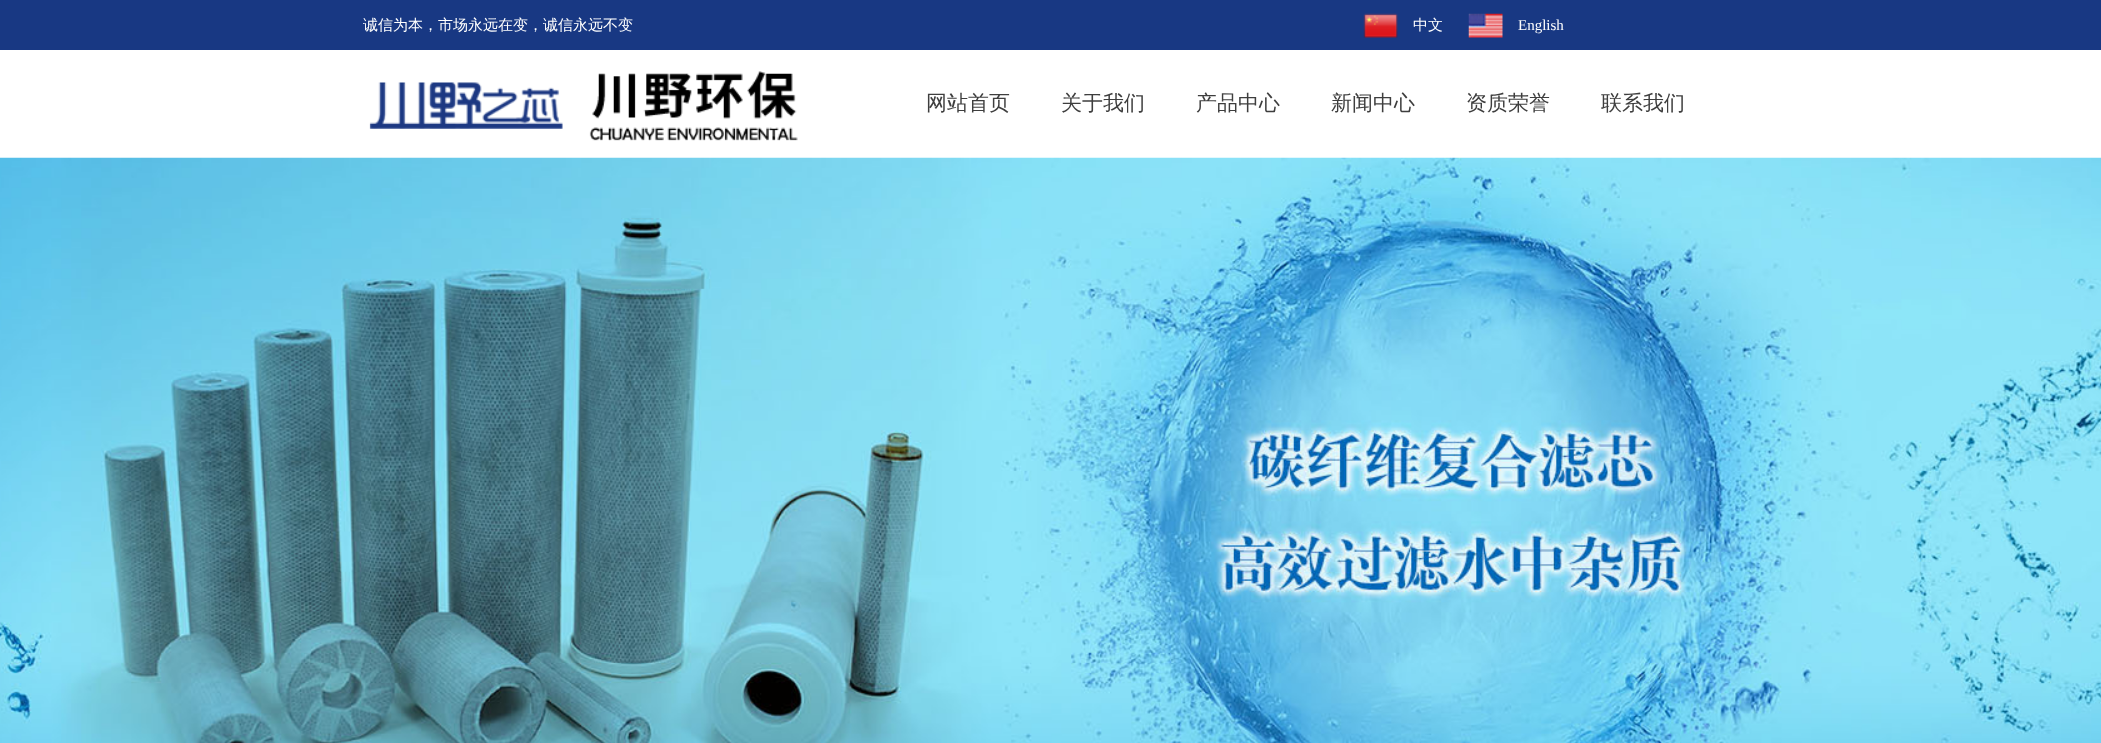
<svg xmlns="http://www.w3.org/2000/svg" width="2101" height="743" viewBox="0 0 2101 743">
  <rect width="100%" height="100%" fill="#fff"/>
  <path d="M0 0h2101v50H0z" fill="#183883"/>
  <image x="1363" y="13" width="35" height="25" href="img/1.png"/>
  <image x="1468" y="13" width="35" height="25" href="img/2.png"/>
  <image x="369" y="71" width="429" height="70" href="img/3.png"/>
  <image x="0" y="157" width="2101" height="586" href="img/4.png"/>
  <g font-family="WenQuanYi Zen Hei" font-size="15" font-weight="500" fill="#fff">
    <text x="363" y="30">诚信为本，市场永远在变，诚信永远不变</text>
    <text x="1413" y="30">中文</text>
  </g>
  <text x="1518" y="30" font-family="Liberation Serif" font-size="15" fill="#fff">English</text>
  <g font-family="WenQuanYi Zen Hei" font-size="21" font-weight="500" fill="#3e3e3e">
    <text x="926" y="110">网站首页</text>
    <text x="1061" y="110">关于我们</text>
    <text x="1196" y="110">产品中心</text>
    <text x="1331" y="110">新闻中心</text>
    <text x="1466" y="110">资质荣誉</text>
    <text x="1601" y="110">联系我们</text>
  </g>
</svg>
